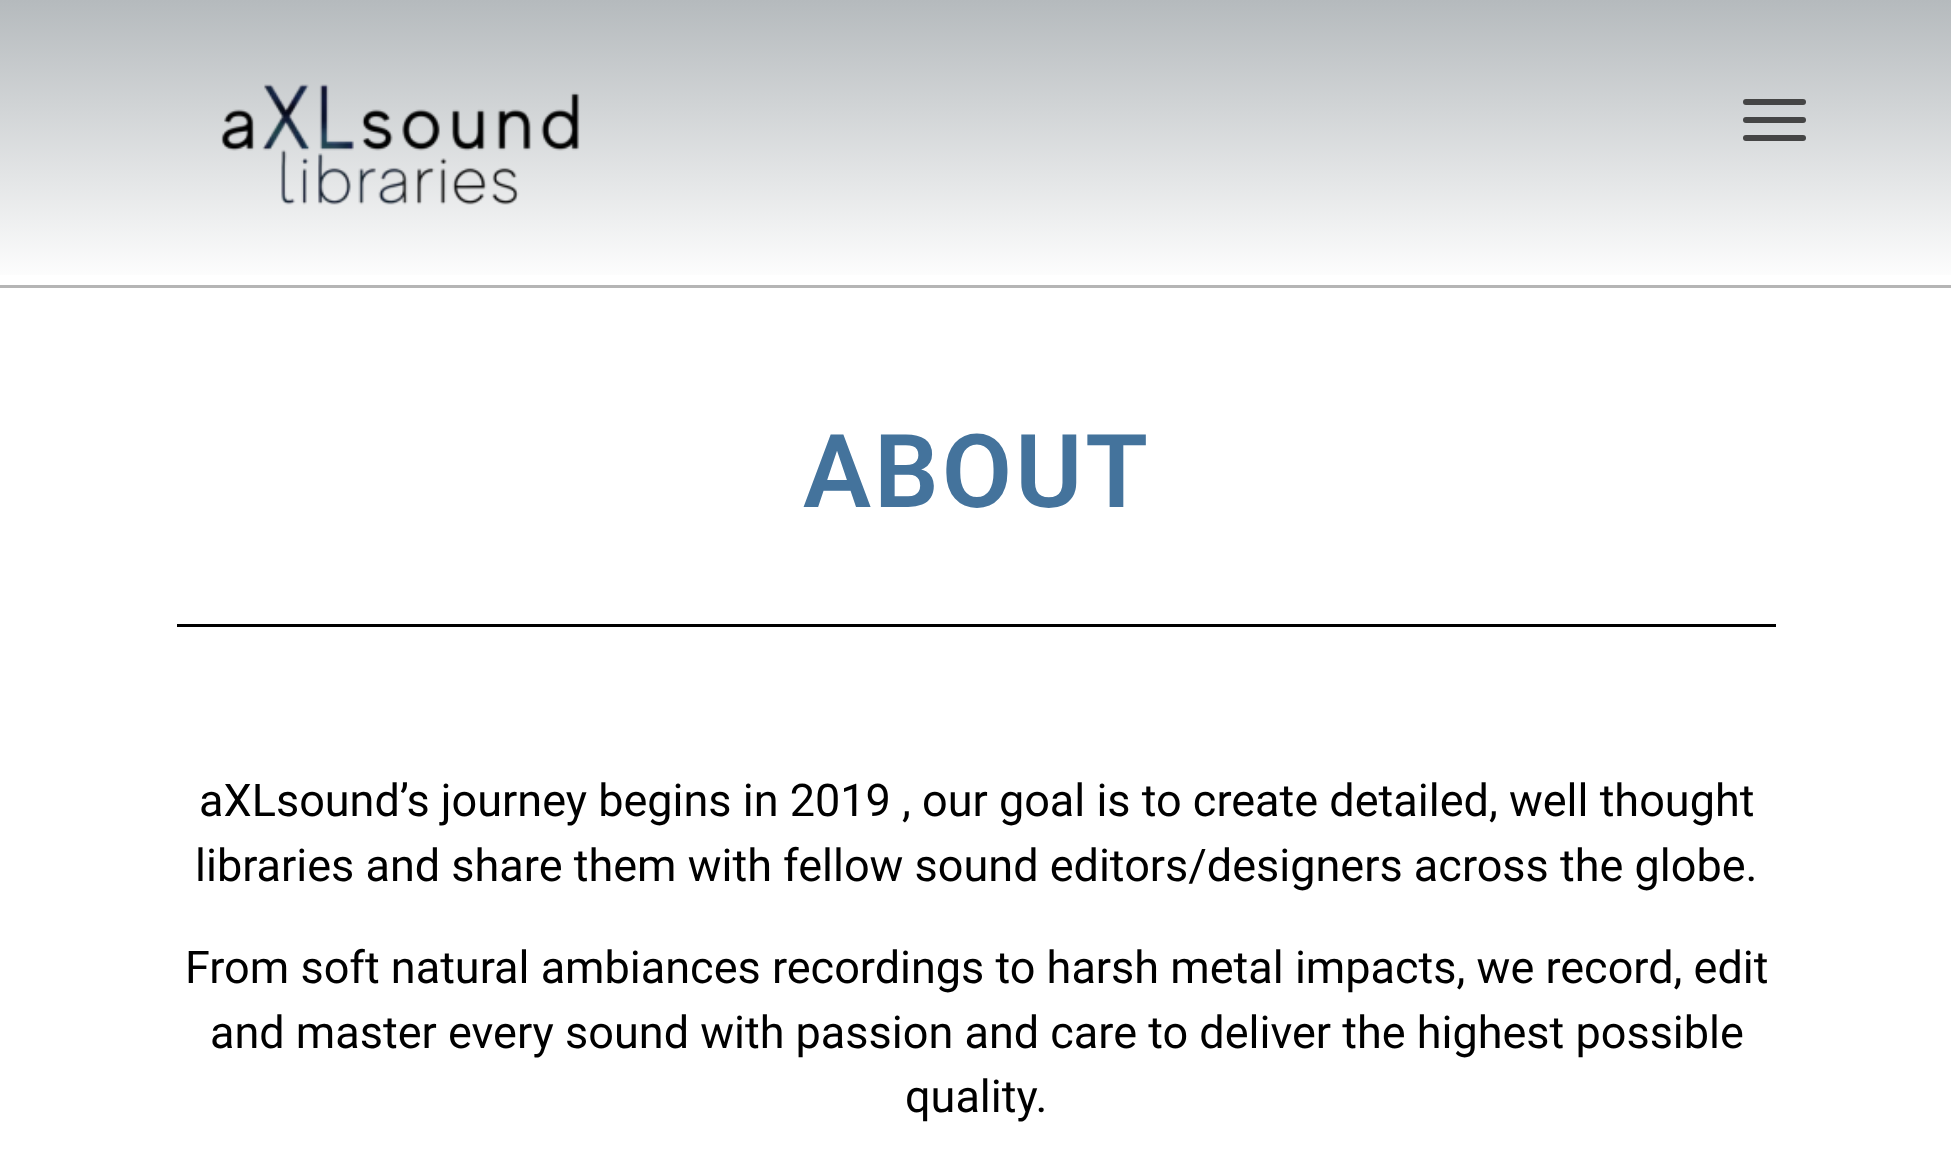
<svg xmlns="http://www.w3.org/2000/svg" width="1951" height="1160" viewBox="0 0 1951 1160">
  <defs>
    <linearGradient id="g1" gradientUnits="userSpaceOnUse" x1="977" y1="0" x2="977" y2="285"><stop offset="0" stop-color="#b5babd"/><stop offset="1" stop-color="#fff"/></linearGradient>
  </defs>
  <rect width="100%" height="100%" fill="#fff"/>
  <path d="M0 0h1951v275H0z" fill="url(#g1)"/>
  <path d="M0 285h1951v3H0z" fill="#b5b5b5"/>
  <image x="221" y="84" width="359" height="121" href="img/1.png"/>
  <rect x="1743" y="117" width="63" height="6" rx="3" fill="#454545"/>
  <rect x="1743" y="99" width="63" height="6" rx="3" fill="#454545"/>
  <rect x="1743" y="135" width="63" height="6" rx="3" fill="#454545"/>
  <path d="M177 624h1599v3H177z" fill="#000"/>
  <text x="803" y="507" font-family="Roboto" font-size="102" font-weight="600" letter-spacing="3" fill="#44739c">ABOUT</text>
  <g font-family="Roboto" font-size="45" fill="#000">
    <text x="199" y="816">aXLsound’s journey begins in 2019 , our goal is to create detailed, well thought</text>
    <text x="195" y="881">libraries and share them with fellow sound editors/designers across the globe.</text>
    <text x="185" y="983">From soft natural ambiances recordings to harsh metal impacts, we record, edit</text>
    <text x="210" y="1048">and master every sound with passion and care to deliver the highest possible</text>
    <text x="905" y="1112">quality.</text>
  </g>
</svg>
